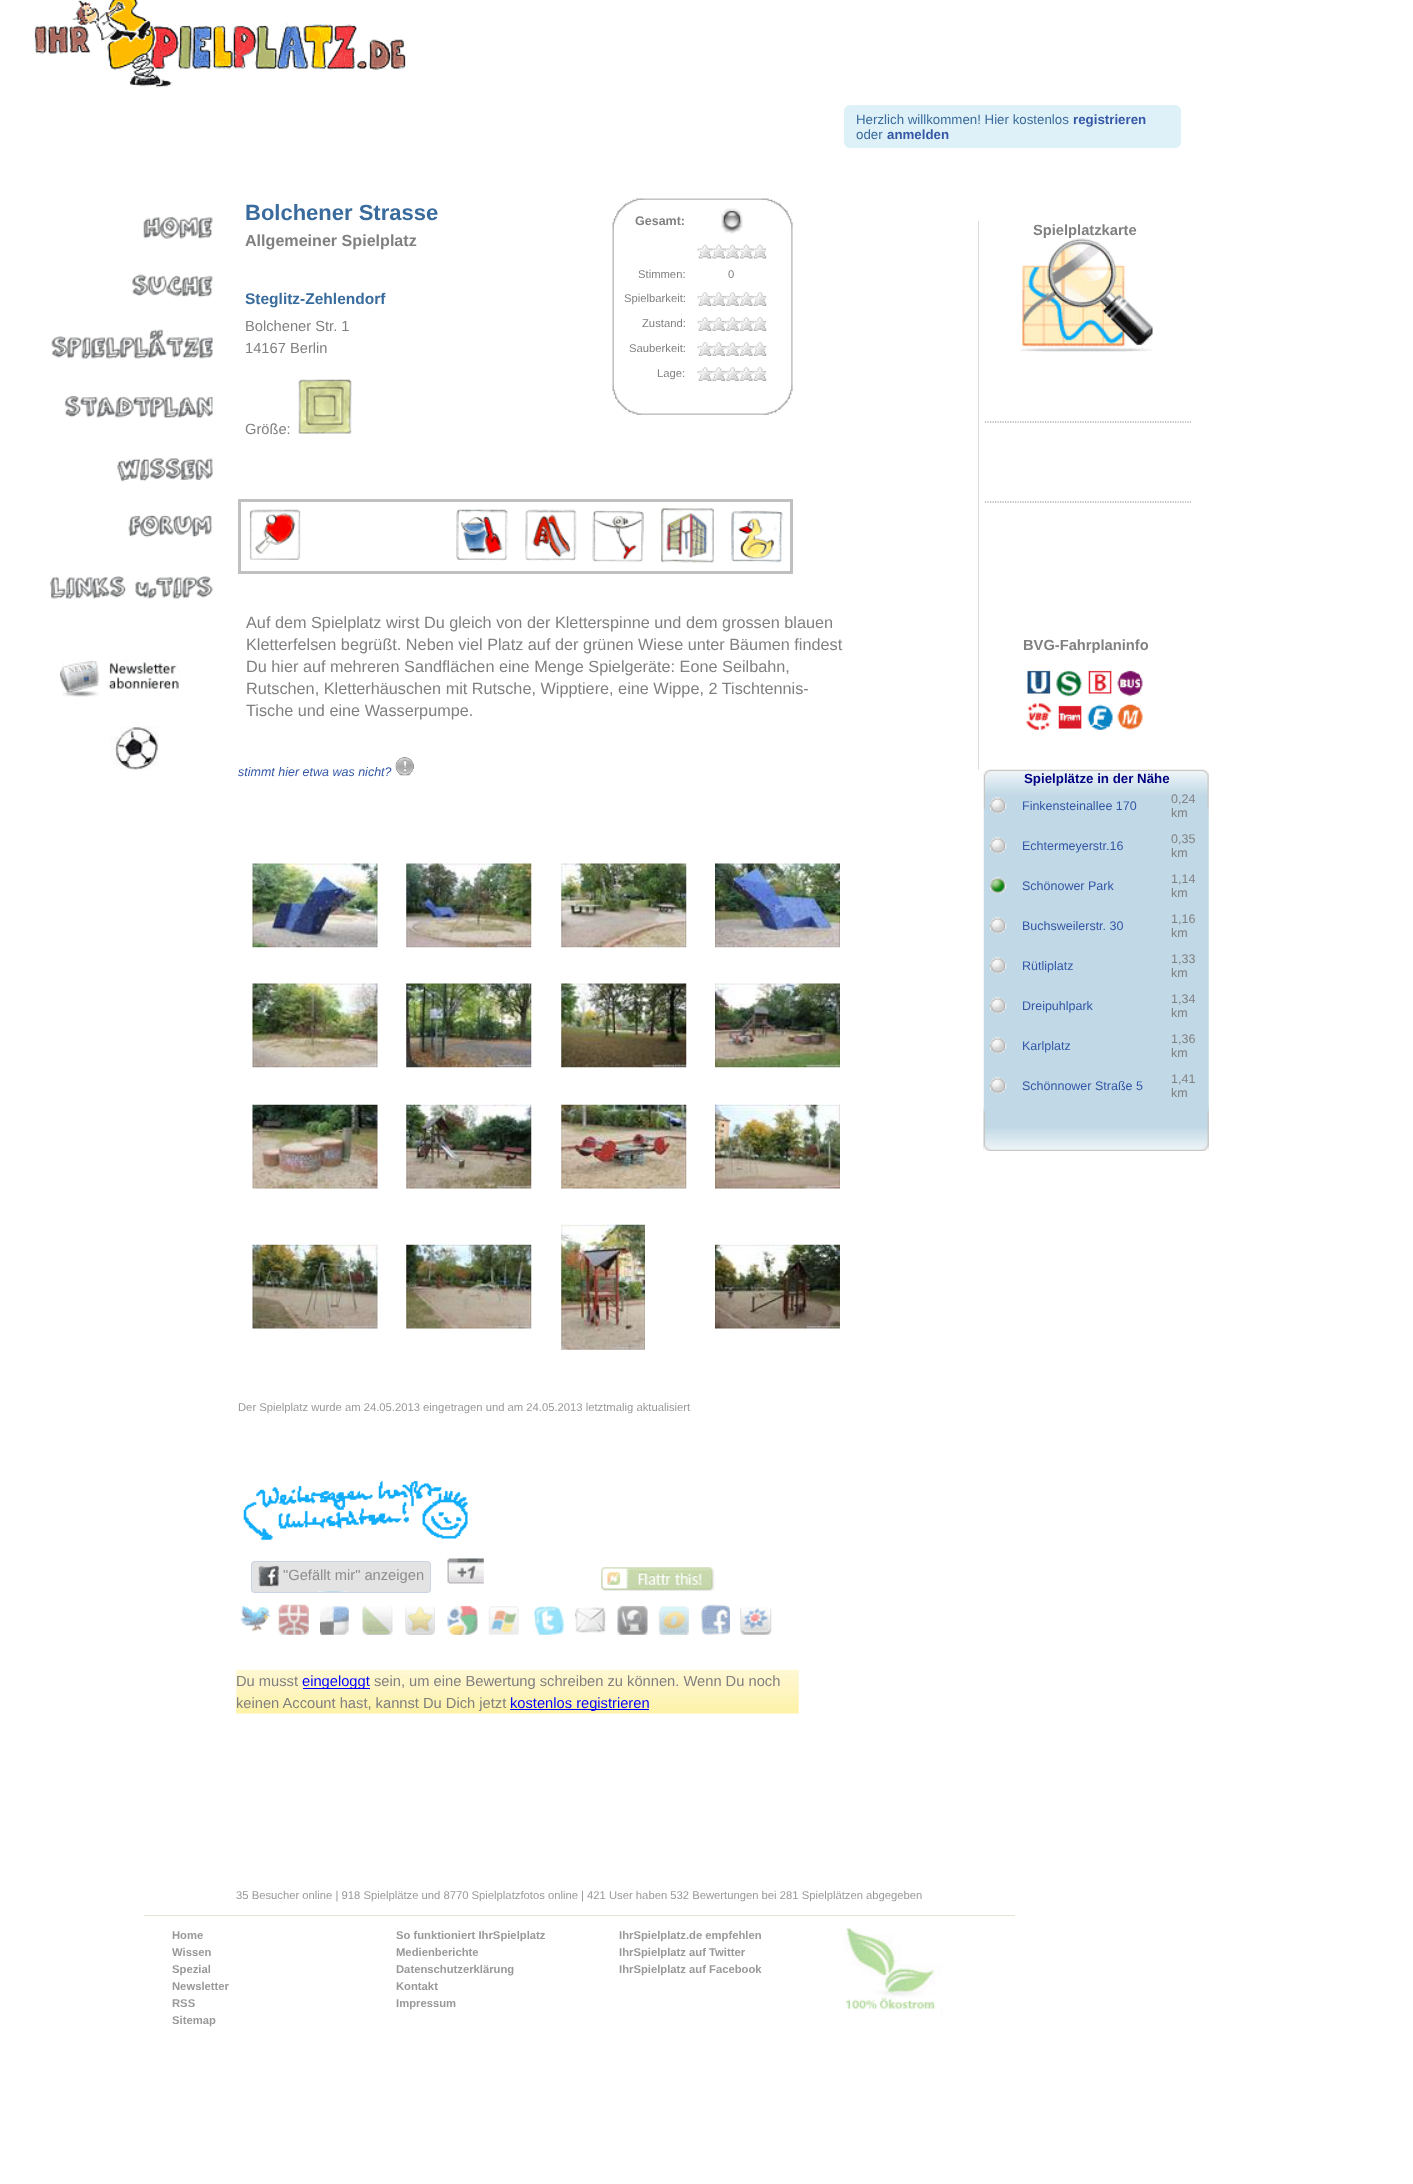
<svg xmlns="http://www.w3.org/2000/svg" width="1413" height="2184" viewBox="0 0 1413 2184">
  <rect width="100%" height="100%" fill="#fff"/>
  <image x="34" y="0" width="372" height="88" href="img/1.png"/>
  <rect x="844" y="105" width="337" height="43" rx="6" fill="#dff1f8"/>
  <image x="143" y="217" width="70" height="22" href="img/2.png"/>
  <image x="132" y="274" width="81" height="24" href="img/3.png"/>
  <image x="51" y="329" width="162" height="30" href="img/4.png"/>
  <image x="64" y="395" width="149" height="24" href="img/5.png"/>
  <image x="117" y="457" width="96" height="25" href="img/6.png"/>
  <image x="128" y="515" width="85" height="23" href="img/7.png"/>
  <image x="50" y="576" width="163" height="23" href="img/8.png"/>
  <image x="60" y="658" width="120" height="39" href="img/9.png"/>
  <image x="110" y="726" width="49" height="44" href="img/10.png"/>
  <image x="298" y="379" width="54" height="55" href="img/11.png"/>
  <image x="612" y="198" width="181" height="217" href="img/12.png"/>
  <image x="721" y="208" width="22" height="26" href="img/13.png"/>
  <image x="697" y="244" width="70" height="15" href="img/14.png"/>
  <image x="697" y="292" width="70" height="14" href="img/15.png"/>
  <image x="697" y="317" width="70" height="14" href="img/15.png"/>
  <image x="697" y="342" width="70" height="14" href="img/15.png"/>
  <image x="697" y="367" width="70" height="14" href="img/15.png"/>
  <path d="M238 499h555v3H238z" fill="#c0c0c0"/>
  <path d="M790 499h3v75H790z" fill="#c0c0c0"/>
  <path d="M238 571h555v3H238z" fill="#c0c0c0"/>
  <path d="M238 499h3v75H238z" fill="#c0c0c0"/>
  <image x="249" y="509" width="52" height="51" href="img/16.png"/>
  <image x="456" y="509" width="52" height="52" href="img/17.png"/>
  <image x="525" y="509" width="52" height="52" href="img/18.png"/>
  <image x="592" y="510" width="52" height="53" href="img/19.png"/>
  <image x="661" y="508" width="53" height="55" href="img/20.png"/>
  <image x="731" y="510" width="52" height="53" href="img/21.png"/>
  <image x="395" y="757" width="19" height="19" href="img/22.png"/>
  <image x="252" y="863" width="126" height="85" href="img/23.png"/>
  <image x="406" y="863" width="126" height="85" href="img/24.png"/>
  <image x="561" y="863" width="126" height="85" href="img/25.png"/>
  <image x="715" y="863" width="125" height="85" href="img/26.png"/>
  <image x="252" y="983" width="126" height="85" href="img/27.png"/>
  <image x="406" y="983" width="126" height="85" href="img/28.png"/>
  <image x="561" y="983" width="126" height="85" href="img/29.png"/>
  <image x="715" y="983" width="125" height="85" href="img/30.png"/>
  <image x="252" y="1104" width="126" height="85" href="img/31.png"/>
  <image x="406" y="1104" width="126" height="85" href="img/32.png"/>
  <image x="561" y="1104" width="126" height="85" href="img/33.png"/>
  <image x="715" y="1104" width="125" height="85" href="img/34.png"/>
  <image x="252" y="1244" width="126" height="85" href="img/35.png"/>
  <image x="406" y="1244" width="126" height="85" href="img/36.png"/>
  <image x="561" y="1224" width="84" height="126" href="img/37.png"/>
  <image x="715" y="1244" width="125" height="85" href="img/38.png"/>
  <image x="243" y="1480" width="225" height="60" href="img/39.png"/>
  <rect x="251" y="1561" width="180" height="32" rx="4" fill="#e3e3e3"/>
  <image x="258" y="1565" width="89" height="27" href="img/40.png"/>
  <rect x="251.5" y="1561.5" width="179" height="31" rx="3.5" fill="none" stroke="#cad4e7"/>
  <image x="447" y="1558" width="37" height="26" href="img/41.png"/>
  <image x="601" y="1567" width="114" height="24" href="img/42.png"/>
  <image x="240" y="1605" width="30" height="27" href="img/43.png"/>
  <image x="278" y="1604" width="31" height="31" href="img/44.png"/>
  <image x="320" y="1606" width="29" height="29" href="img/45.png"/>
  <image x="362" y="1605" width="31" height="30" href="img/46.png"/>
  <image x="405" y="1605" width="30" height="30" href="img/47.png"/>
  <image x="447" y="1605" width="31" height="30" href="img/48.png"/>
  <image x="488" y="1606" width="31" height="29" href="img/49.png"/>
  <image x="533" y="1606" width="31" height="29" href="img/50.png"/>
  <image x="574" y="1607" width="32" height="26" href="img/51.png"/>
  <image x="617" y="1605" width="31" height="30" href="img/52.png"/>
  <image x="658" y="1606" width="31" height="29" href="img/53.png"/>
  <image x="701" y="1604" width="29" height="31" href="img/54.png"/>
  <image x="740" y="1607" width="32" height="28" href="img/55.png"/>
  <image x="236" y="1669" width="563" height="45" href="img/56.png"/>
  <path d="M303 1688h67v1H303z" fill="#00f"/>
  <path d="M510 1709h139v1H510z" fill="#00f"/>
  <path d="M978 221h1v549H978z" fill="#dcdcdc"/>
  <image x="1020" y="238" width="133" height="114" href="img/57.png"/>
  <path d="M985 422H1191" fill="none" stroke="#8b8b8b" stroke-width="1.2" stroke-dasharray="1.25 1.25"/>
  <path d="M985 502H1191" fill="none" stroke="#8b8b8b" stroke-width="1.2" stroke-dasharray="1.25 1.25"/>
  <image x="1026" y="670" width="117" height="60" href="img/58.png"/>
  <image x="983" y="769" width="226" height="382" href="img/59.png"/>
  <image x="990" y="797" width="17" height="17" href="img/60.png"/>
  <image x="990" y="837" width="17" height="17" href="img/61.png"/>
  <image x="990" y="877" width="17" height="17" href="img/62.png"/>
  <image x="990" y="917" width="17" height="17" href="img/61.png"/>
  <image x="990" y="957" width="17" height="17" href="img/61.png"/>
  <image x="990" y="997" width="17" height="17" href="img/61.png"/>
  <image x="990" y="1037" width="17" height="17" href="img/61.png"/>
  <image x="990" y="1077" width="17" height="17" href="img/61.png"/>
  <image x="983" y="1111" width="226" height="40" href="img/63.png"/>
  <path d="M144 1915h871v1H144z" fill="#dee5d9"/>
  <image x="844" y="1928" width="99" height="87" href="img/64.png"/>
  <text x="856" y="124" font-family="Liberation Sans" font-size="13.3" fill="#396b9c">Herzlich willkommen! Hier kostenlos</text>
  <text x="1073" y="124" font-family="Liberation Sans" font-size="13.3" font-weight="bold" fill="#3458a6">registrieren</text>
  <text x="856" y="139" font-family="Liberation Sans" font-size="13.3" fill="#396b9c">oder</text>
  <text x="887" y="139" font-family="Liberation Sans" font-size="13.3" font-weight="bold" fill="#3458a6">anmelden</text>
  <text x="245" y="220" font-family="Liberation Sans" font-size="22" font-weight="bold" fill="#396b9c">Bolchener Strasse</text>
  <text x="245" y="246" font-family="Liberation Sans" font-size="16.1" font-weight="bold" fill="#808080">Allgemeiner Spielplatz</text>
  <text x="245" y="304" font-family="Liberation Sans" font-size="15.5" font-weight="bold" fill="#396b9c">Steglitz-Zehlendorf</text>
  <g font-family="Liberation Sans" font-size="14.7" fill="#808080">
    <text x="245" y="331">Bolchener Str. 1</text>
    <text x="245" y="353">14167 Berlin</text>
    <text x="245" y="434">Größe:</text>
  </g>
  <text x="635" y="225" font-family="Liberation Sans" font-size="12.5" font-weight="bold" fill="#808080">Gesamt:</text>
  <g font-family="Liberation Sans" font-size="11.25" fill="#808080">
    <text x="638" y="278">Stimmen:</text>
    <text x="728" y="278">0</text>
    <text x="624" y="302">Spielbarkeit:</text>
    <text x="642" y="327">Zustand:</text>
    <text x="629" y="352">Sauberkeit:</text>
    <text x="657" y="377">Lage:</text>
  </g>
  <g font-family="Liberation Sans" font-size="16.25" fill="#808080">
    <text x="246" y="628">Auf dem Spielplatz wirst Du gleich von der Kletterspinne und dem grossen blauen</text>
    <text x="246" y="650">Kletterfelsen begrüßt. Neben viel Platz auf der grünen Wiese unter Bäumen findest</text>
    <text x="246" y="672">Du hier auf mehreren Sandflächen eine Menge Spielgeräte: Eone Seilbahn,</text>
    <text x="246" y="694">Rutschen, Kletterhäuschen mit Rutsche, Wipptiere, eine Wippe, 2 Tischtennis-</text>
    <text x="246" y="716">Tische und eine Wasserpumpe.</text>
  </g>
  <text x="238" y="776" font-family="Liberation Sans" font-size="12.5" font-style="italic" fill="#3458a6">stimmt hier etwa was nicht?</text>
  <text x="238" y="1411" font-family="Liberation Sans" font-size="11.25" fill="#999">Der Spielplatz wurde am 24.05.2013 eingetragen und am 24.05.2013 letztmalig aktualisiert</text>
  <text x="283" y="1580" font-family="Liberation Sans" font-size="14.7" fill="#8e8e8e">"Gefällt mir" anzeigen</text>
  <text x="236" y="1686" font-family="Liberation Sans" font-size="14.7" fill="#808080">Du musst</text>
  <text x="302" y="1686" font-family="Liberation Sans" font-size="14.7" fill="#00f">eingeloggt</text>
  <g font-family="Liberation Sans" font-size="14.7" fill="#808080">
    <text x="374" y="1686">sein, um eine Bewertung schreiben zu können. Wenn Du noch</text>
    <text x="236" y="1708">keinen Account hast, kannst Du Dich jetzt</text>
  </g>
  <text x="510" y="1708" font-family="Liberation Sans" font-size="14.7" fill="#00f">kostenlos registrieren</text>
  <g font-family="Liberation Sans" font-size="14.7" font-weight="bold" fill="#808080">
    <text x="1033" y="235">Spielplatzkarte</text>
    <text x="1023" y="650">BVG-Fahrplaninfo</text>
  </g>
  <text x="1024" y="783" font-family="Liberation Sans" font-size="13.3" font-weight="bold" fill="#000080">Spielplätze in der Nähe</text>
  <text x="1022" y="810" font-family="Liberation Sans" font-size="12.5" fill="#3458a6">Finkensteinallee 170</text>
  <g font-family="Liberation Sans" font-size="12.5" fill="#808080">
    <text x="1171" y="803">0,24</text>
    <text x="1171" y="817">km</text>
  </g>
  <text x="1022" y="850" font-family="Liberation Sans" font-size="12.5" fill="#3458a6">Echtermeyerstr.16</text>
  <g font-family="Liberation Sans" font-size="12.5" fill="#808080">
    <text x="1171" y="843">0,35</text>
    <text x="1171" y="857">km</text>
  </g>
  <text x="1022" y="890" font-family="Liberation Sans" font-size="12.5" fill="#3458a6">Schönower Park</text>
  <g font-family="Liberation Sans" font-size="12.5" fill="#808080">
    <text x="1171" y="883">1,14</text>
    <text x="1171" y="897">km</text>
  </g>
  <text x="1022" y="930" font-family="Liberation Sans" font-size="12.5" fill="#3458a6">Buchsweilerstr. 30</text>
  <g font-family="Liberation Sans" font-size="12.5" fill="#808080">
    <text x="1171" y="923">1,16</text>
    <text x="1171" y="937">km</text>
  </g>
  <text x="1022" y="970" font-family="Liberation Sans" font-size="12.5" fill="#3458a6">Rütliplatz</text>
  <g font-family="Liberation Sans" font-size="12.5" fill="#808080">
    <text x="1171" y="963">1,33</text>
    <text x="1171" y="977">km</text>
  </g>
  <text x="1022" y="1010" font-family="Liberation Sans" font-size="12.5" fill="#3458a6">Dreipuhlpark</text>
  <g font-family="Liberation Sans" font-size="12.5" fill="#808080">
    <text x="1171" y="1003">1,34</text>
    <text x="1171" y="1017">km</text>
  </g>
  <text x="1022" y="1050" font-family="Liberation Sans" font-size="12.5" fill="#3458a6">Karlplatz</text>
  <g font-family="Liberation Sans" font-size="12.5" fill="#808080">
    <text x="1171" y="1043">1,36</text>
    <text x="1171" y="1057">km</text>
  </g>
  <text x="1022" y="1090" font-family="Liberation Sans" font-size="12.5" fill="#3458a6">Schönnower Straße 5</text>
  <g font-family="Liberation Sans" font-size="12.5" fill="#808080">
    <text x="1171" y="1083">1,41</text>
    <text x="1171" y="1097">km</text>
  </g>
  <text x="236" y="1899" font-family="Liberation Sans" font-size="11.25" fill="#999">35 Besucher online | 918 Spielplätze und 8770 Spielplatzfotos online | 421 User haben 532 Bewertungen bei 281 Spielplätzen abgegeben</text>
  <g font-family="Liberation Sans" font-size="11.25" font-weight="bold" fill="#999">
    <text x="172" y="1939">Home</text>
    <text x="172" y="1956">Wissen</text>
    <text x="172" y="1973">Spezial</text>
    <text x="172" y="1990">Newsletter</text>
    <text x="172" y="2007">RSS</text>
    <text x="172" y="2024">Sitemap</text>
    <text x="396" y="1939">So funktioniert IhrSpielplatz</text>
    <text x="396" y="1956">Medienberichte</text>
    <text x="396" y="1973">Datenschutzerklärung</text>
    <text x="396" y="1990">Kontakt</text>
    <text x="396" y="2007">Impressum</text>
    <text x="619" y="1939">IhrSpielplatz.de empfehlen</text>
    <text x="619" y="1956">IhrSpielplatz auf Twitter</text>
    <text x="619" y="1973">IhrSpielplatz auf Facebook</text>
  </g>
</svg>
